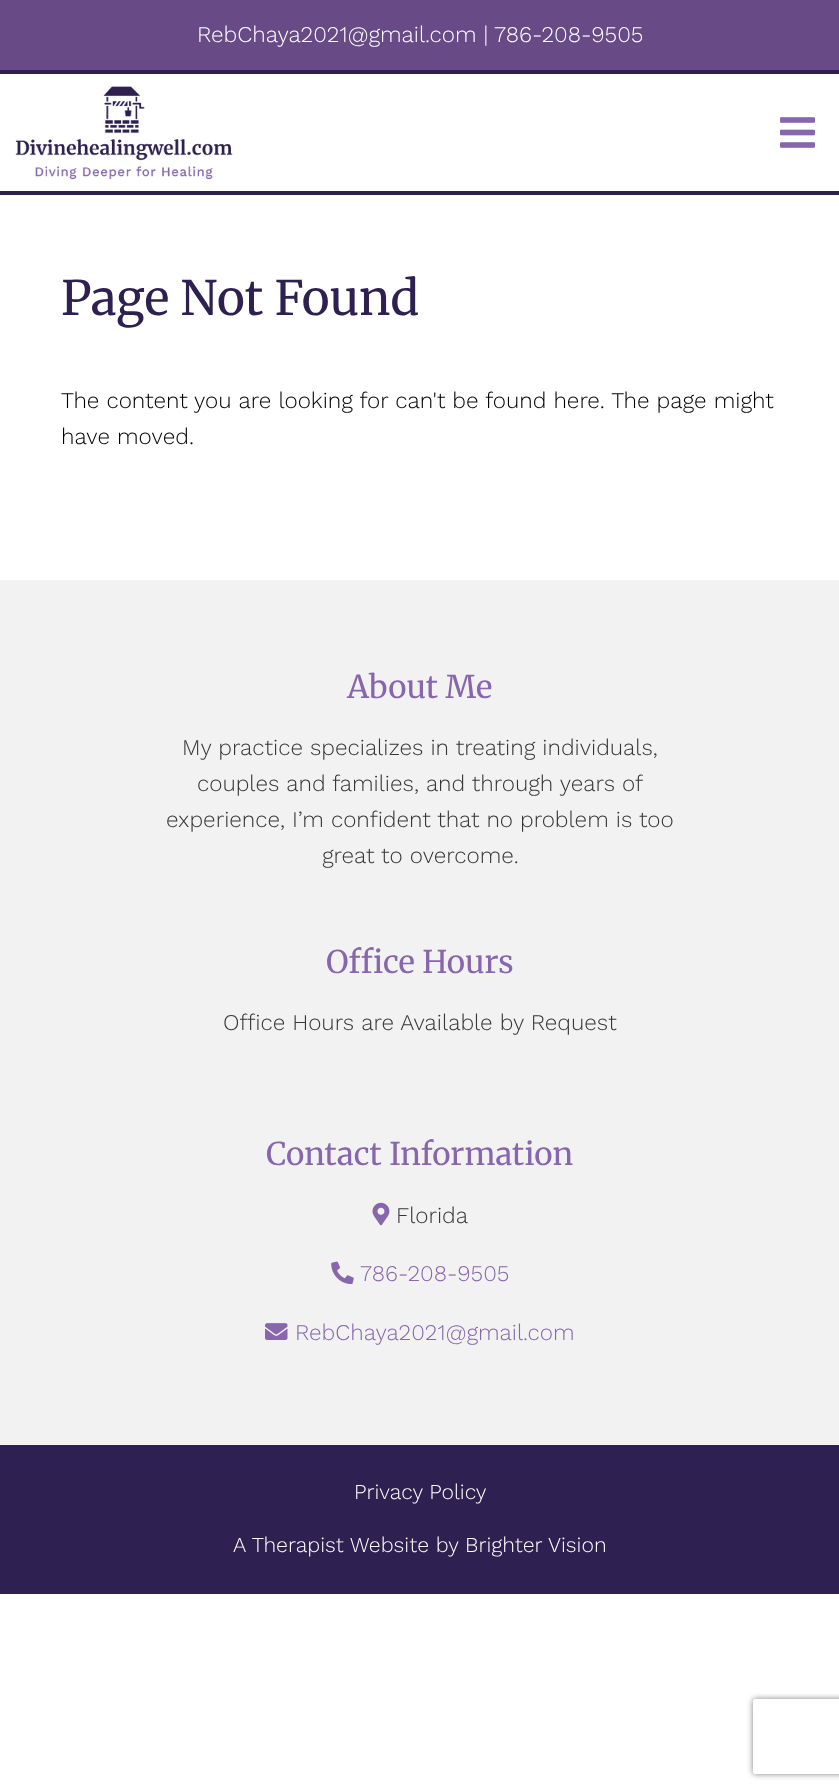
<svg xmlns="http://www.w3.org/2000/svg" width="839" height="1791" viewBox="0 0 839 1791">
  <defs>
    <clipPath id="clip1"><path d="M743 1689H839V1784H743ZM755.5 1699H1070.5C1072 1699 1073 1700 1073 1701.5V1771.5C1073 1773 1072 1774 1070.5 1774H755.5C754 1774 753 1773 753 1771.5V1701.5C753 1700 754 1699 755.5 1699Z" clip-rule="evenodd"/></clipPath>
  </defs>
  <rect width="100%" height="100%" fill="#fff"/>
  <path d="M0 0h839v70H0z" fill="#674a86"/>
  <path d="M0 70h839v4H0z" fill="#2e2050"/>
  <path d="M0 191h839v4H0z" fill="#2e2050"/>
  <image x="15" y="86" width="218" height="94" href="img/1.png"/>
  <image x="780" y="117" width="35" height="31" href="img/2.png"/>
  <path d="M0 580h839v865H0z" fill="#f2f2f2"/>
  <image x="372" y="1202" width="18" height="24" href="img/3.png"/>
  <image x="331" y="1261" width="23" height="24" href="img/4.png"/>
  <image x="265" y="1323" width="23" height="17" href="img/5.png"/>
  <path d="M0 1445h839v149H0z" fill="#2e2050"/>
  <g clip-path="url(#clip1)">
    <rect x="753" y="1699" width="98" height="75" rx="2.5" fill="#808080" filter="blur(3px)"/>
  </g>
  <g font-family="Work Sans" font-size="22.5" font-weight="300" fill="#fff">
    <text x="197" y="42">RebChaya2021@gmail.com |</text>
    <text x="494" y="42">786-208-9505</text>
  </g>
  <text x="61" y="315" font-family="Merriweather" font-size="47.5" fill="#2e2050">Page Not Found</text>
  <g font-family="Work Sans" font-size="22.5" font-weight="300" fill="#000">
    <text x="61" y="408">The content you are looking for can't be found here. The page might</text>
    <text x="61" y="444">have moved.</text>
  </g>
  <text x="347" y="698" font-family="Merriweather" font-size="31.25" fill="#8766ae">About Me</text>
  <g font-family="Work Sans" font-size="22.5" font-weight="300" fill="#363636">
    <text x="182" y="755">My practice specializes in treating individuals,</text>
    <text x="197" y="791">couples and families, and through years of</text>
    <text x="166" y="827">experience, I’m confident that no problem is too</text>
    <text x="322" y="863">great to overcome.</text>
  </g>
  <text x="326" y="973" font-family="Merriweather" font-size="31.25" fill="#8766ae">Office Hours</text>
  <text x="223" y="1030" font-family="Work Sans" font-size="22.5" font-weight="300" fill="#363636">Office Hours are Available by Request</text>
  <text x="266" y="1165" font-family="Merriweather" font-size="31.25" fill="#8766ae">Contact Information</text>
  <text x="396" y="1223" font-family="Work Sans" font-size="22.5" font-weight="300" fill="#363636">Florida</text>
  <g font-family="Work Sans" font-size="22.5" font-weight="300" fill="#8766ae">
    <text x="360" y="1281">786-208-9505</text>
    <text x="295" y="1340">RebChaya2021@gmail.com</text>
  </g>
  <g font-family="Work Sans" font-size="21.25" font-weight="300" fill="#fff">
    <text x="354" y="1499">Privacy Policy</text>
    <text x="233" y="1552">A Therapist Website by Brighter Vision</text>
  </g>
</svg>
